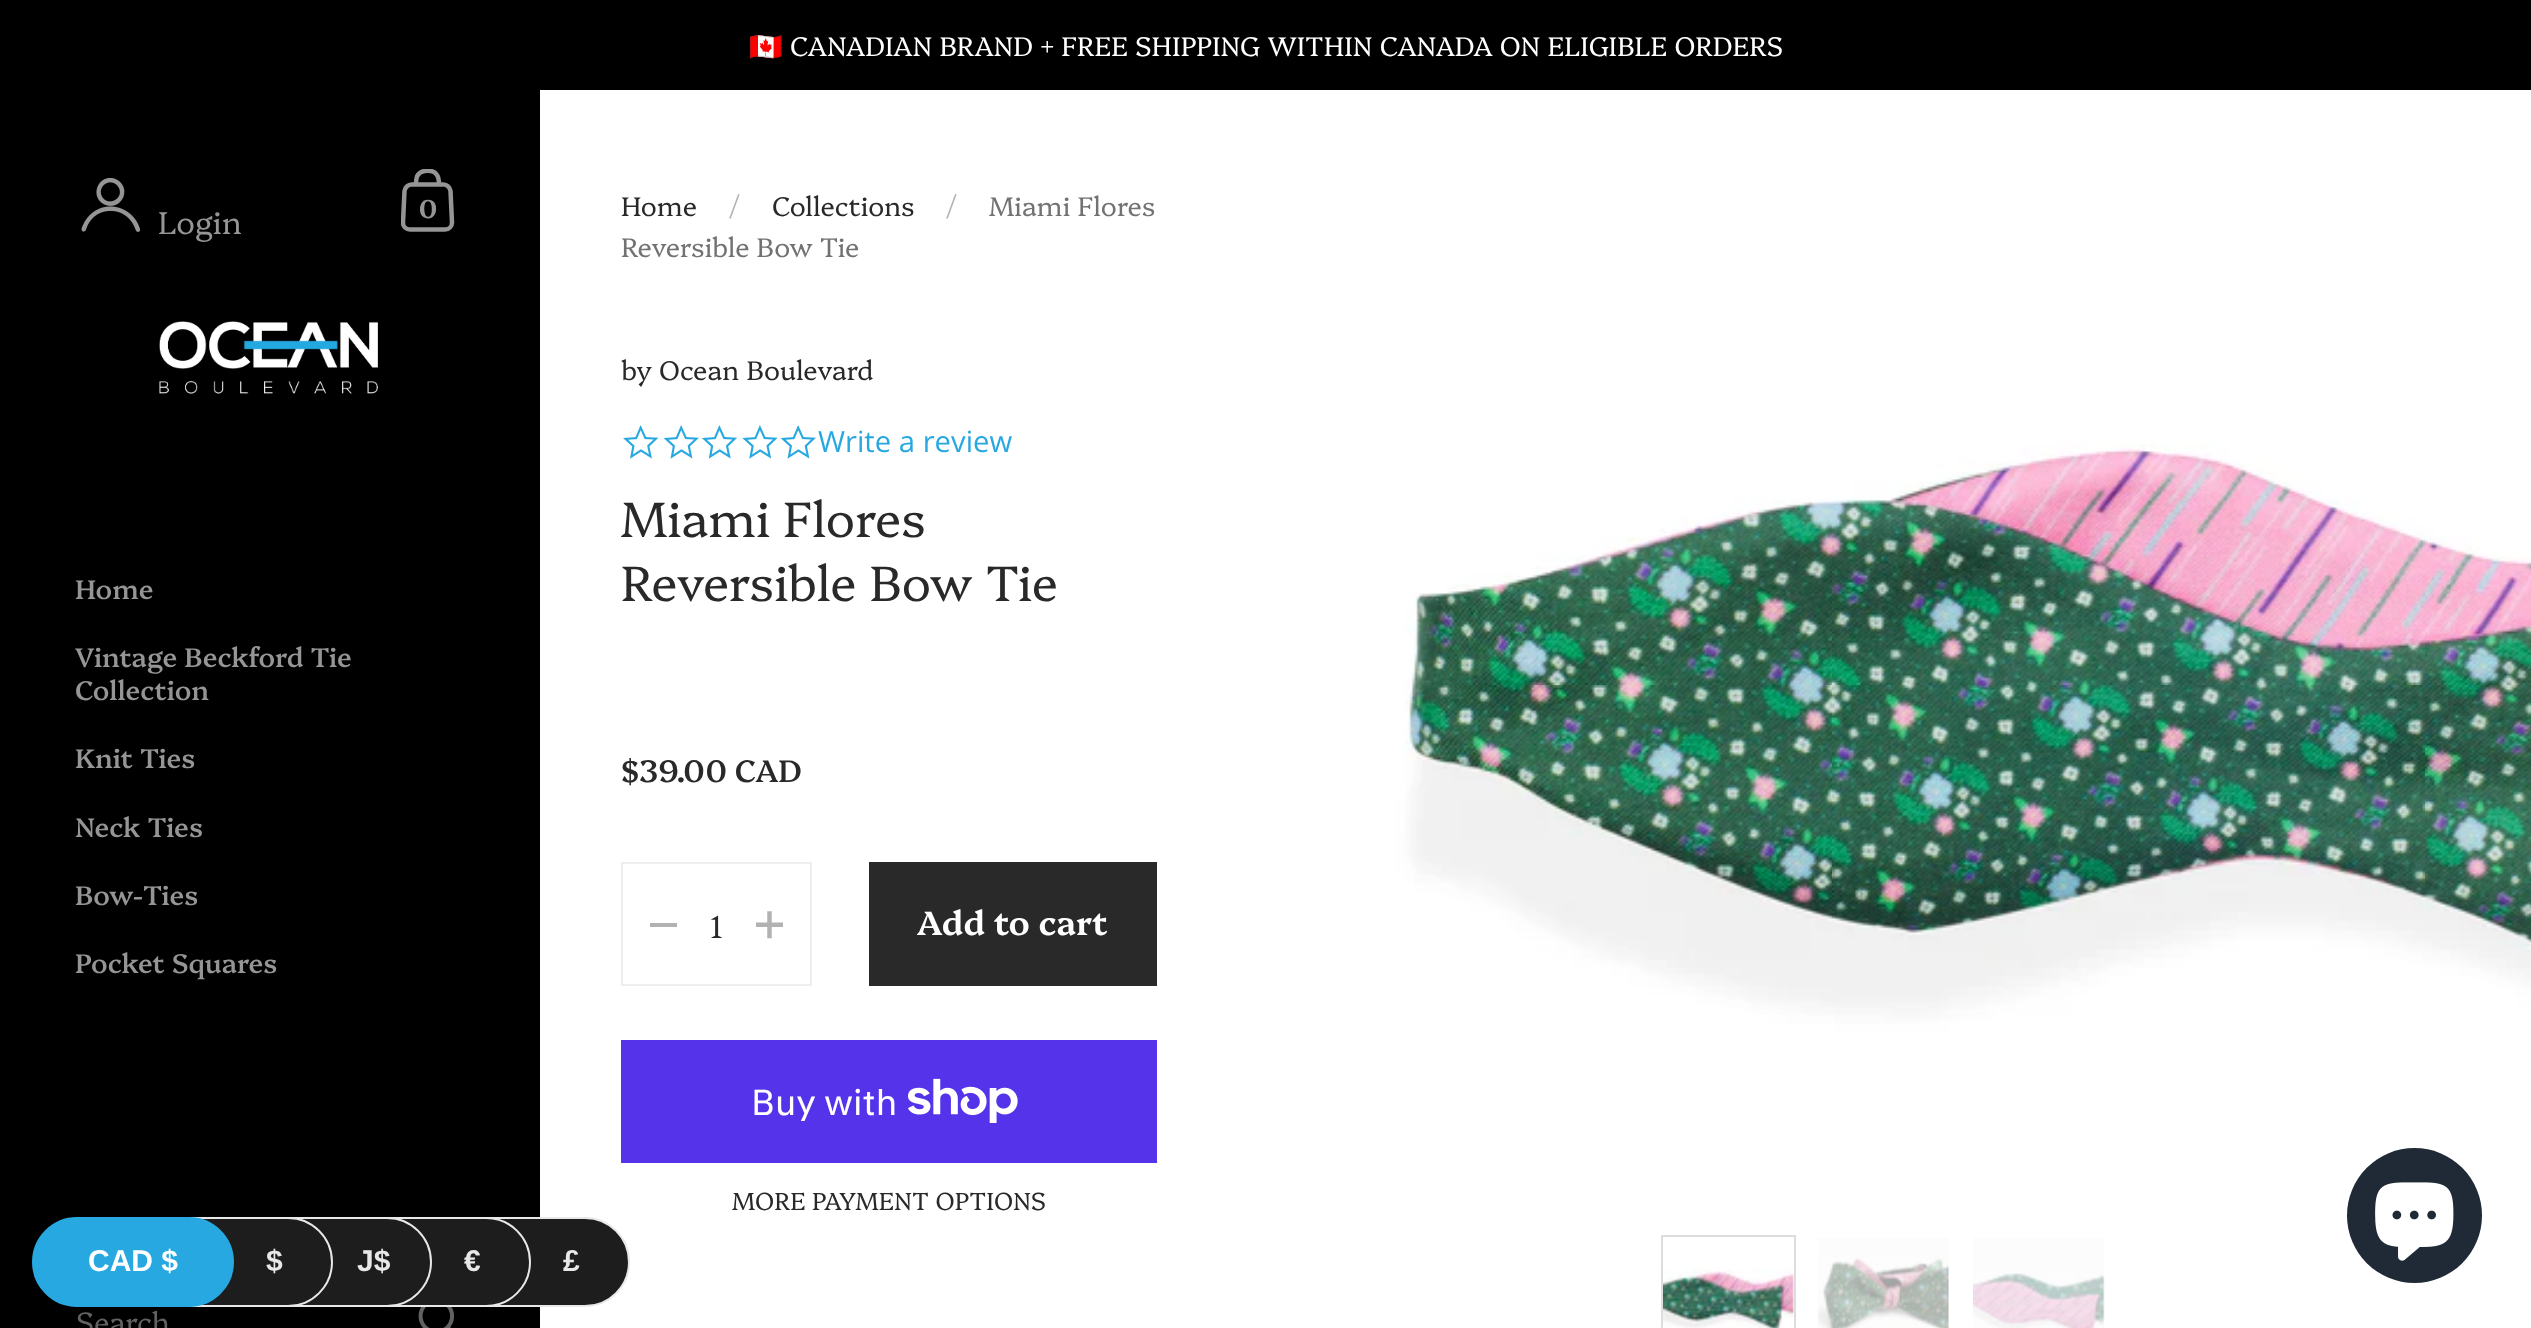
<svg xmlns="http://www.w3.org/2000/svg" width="2531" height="1328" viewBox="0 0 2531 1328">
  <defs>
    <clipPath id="clip1"><path d="M401 169h54v63H401z"/></clipPath>
  </defs>
  <rect width="100%" height="100%" fill="#fff"/>
  <path d="M0 0h2531v90H0z" fill="#000"/>
  <path d="M0 90h540v1238H0z" fill="#000"/>
  <g clip-path="url(#clip1)">
    <path d="M416 184.5H411.5C408 184.5 405 187.5 404.5 191L403 222.5C403 226.5 406 229.5 410 229.5H445C449 229.5 452 226.5 452 222.5L450.5 191C450 187.5 447 184.5 443.5 184.5H439M416 184.5C416 182 416 179 417 176.5C420 169.5 433 168.5 437 175C439 178 439 181 439 184.5M416 184.5H439" fill="none" stroke="#959595" stroke-width="4.5"/>
  </g>
  <image x="81" y="177" width="60" height="55" href="img/1.png"/>
  <image x="159" y="321" width="219" height="73" href="img/2.png"/>
  <image x="418" y="1307" width="36" height="21" href="img/3.png"/>
  <image x="623" y="425" width="36" height="34" href="img/4.png"/>
  <image x="663" y="425" width="36" height="34" href="img/5.png"/>
  <image x="702" y="425" width="35" height="34" href="img/6.png"/>
  <image x="742" y="425" width="36" height="34" href="img/7.png"/>
  <image x="780" y="425" width="36" height="34" href="img/5.png"/>
  <path d="M622 863h189v122H622z" fill="none" stroke="#eee" stroke-width="2"/>
  <path d="M650 923h27v4H650z" fill="#b2b2b2"/>
  <image x="756" y="911" width="27" height="28" href="img/8.png"/>
  <path d="M869 862h288v124H869z" fill="#292929"/>
  <path d="M621 1040h536v123H621z" fill="#5433eb"/>
  <image x="908" y="1078" width="110" height="45" href="img/9.png"/>
  <image x="1238" y="90" width="1293" height="1238" href="img/10.png"/>
  <path d="M1662 1236h133v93H1662z" fill="none" stroke="#ddd" stroke-width="2"/>
  <image x="1663" y="1238" width="131" height="90" href="img/11.png"/>
  <path d="M1818 1238h131v90H1818z" fill="#fcfcfc"/>
  <image x="1818" y="1258" width="131" height="70" href="img/12.png"/>
  <path d="M1973 1238h131v90H1973z" fill="#fcfcfc"/>
  <image x="1973" y="1273" width="132" height="55" href="img/13.png"/>
  <circle cx="2414.5" cy="1215.5" r="67.5" fill="#202a36"/>
  <image x="2375" y="1182" width="79" height="79" href="img/14.png"/>
  <rect x="429" y="1218" width="200" height="88" rx="44" fill="#1d1d1d" stroke="#e8e8e8" stroke-width="2"/>
  <rect x="330" y="1218" width="200" height="88" rx="44" fill="#1d1d1d" stroke="#e8e8e8" stroke-width="2"/>
  <rect x="231" y="1218" width="200" height="88" rx="44" fill="#1d1d1d" stroke="#e8e8e8" stroke-width="2"/>
  <rect x="132" y="1218" width="200" height="88" rx="44" fill="#1d1d1d" stroke="#e8e8e8" stroke-width="2"/>
  <rect x="33" y="1218" width="200" height="88" rx="44" fill="#27a8e0" stroke="#27a8e0" stroke-width="2"/>
  <text x="749" y="56" font-family="Noto Color Emoji" font-size="27" fill="#fff">🇨🇦</text>
  <text x="790" y="56" font-family="Platypi" font-size="27" font-weight="300" fill="#fff">CANADIAN BRAND + FREE SHIPPING WITHIN CANADA ON ELIGIBLE ORDERS</text>
  <text x="419" y="218" font-family="Platypi" font-size="26" font-weight="600" fill="#959595">0</text>
  <text x="158" y="234" font-family="Platypi" font-size="31.5" font-weight="300" fill="#959595">Login</text>
  <g font-family="Platypi" font-size="27" font-weight="500" fill="#959595">
    <text x="75" y="599">Home</text>
    <text x="75" y="667">Vintage Beckford Tie</text>
    <text x="75" y="700">Collection</text>
    <text x="75" y="768">Knit Ties</text>
    <text x="75" y="837">Neck Ties</text>
    <text x="75" y="905">Bow-Ties</text>
    <text x="75" y="973">Pocket Squares</text>
  </g>
  <text x="76" y="1333" font-family="Platypi" font-size="29.25" font-weight="300" fill="#626262">Search</text>
  <text x="621" y="216" font-family="Platypi" font-size="27" font-weight="300" fill="#292929">Home</text>
  <text x="729" y="216" font-family="Platypi" font-size="27" font-weight="300" fill="#b2b2b2">/</text>
  <text x="772" y="216" font-family="Platypi" font-size="27" font-weight="300" fill="#292929">Collections</text>
  <text x="946" y="216" font-family="Platypi" font-size="27" font-weight="300" fill="#b2b2b2">/</text>
  <g font-family="Platypi" font-size="27" font-weight="300" fill="#727272">
    <text x="989" y="216">Miami Flores</text>
    <text x="621" y="257">Reversible Bow Tie</text>
  </g>
  <text x="621" y="380" font-family="Platypi" font-size="27" font-weight="300" fill="#292929">by Ocean Boulevard</text>
  <text x="818" y="452" font-family="Open Sans" font-size="29.25" fill="#27a8e0">Write a review</text>
  <g font-family="Platypi" font-size="49.5" font-weight="300" fill="#292929">
    <text x="621" y="537">Miami Flores</text>
    <text x="621" y="601">Reversible Bow Tie</text>
  </g>
  <text x="621" y="782" font-family="Platypi" font-size="31" font-weight="500" fill="#292929">$39.00 CAD</text>
  <text x="710" y="938" font-family="Platypi" font-size="31.5" font-weight="300" fill="#292929">1</text>
  <text x="917" y="935" font-family="Platypi" font-size="33.75" font-weight="600" fill="#fff">Add to cart</text>
  <text x="751" y="1115" font-family="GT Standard" font-size="36" fill="#fff">Buy with</text>
  <text x="732" y="1210" font-family="Platypi" font-size="24.75" font-weight="300" fill="#292929">MORE PAYMENT OPTIONS</text>
  <text x="88" y="1271" font-family="Liberation Sans" font-size="30" font-weight="bold" fill="#fff">CAD $</text>
  <g font-family="Liberation Sans" font-size="30" font-weight="bold" fill="#e8e8e8">
    <text x="266" y="1271">$</text>
    <text x="357" y="1271">J$</text>
    <text x="464" y="1271">€</text>
    <text x="563" y="1271">£</text>
  </g>
</svg>
